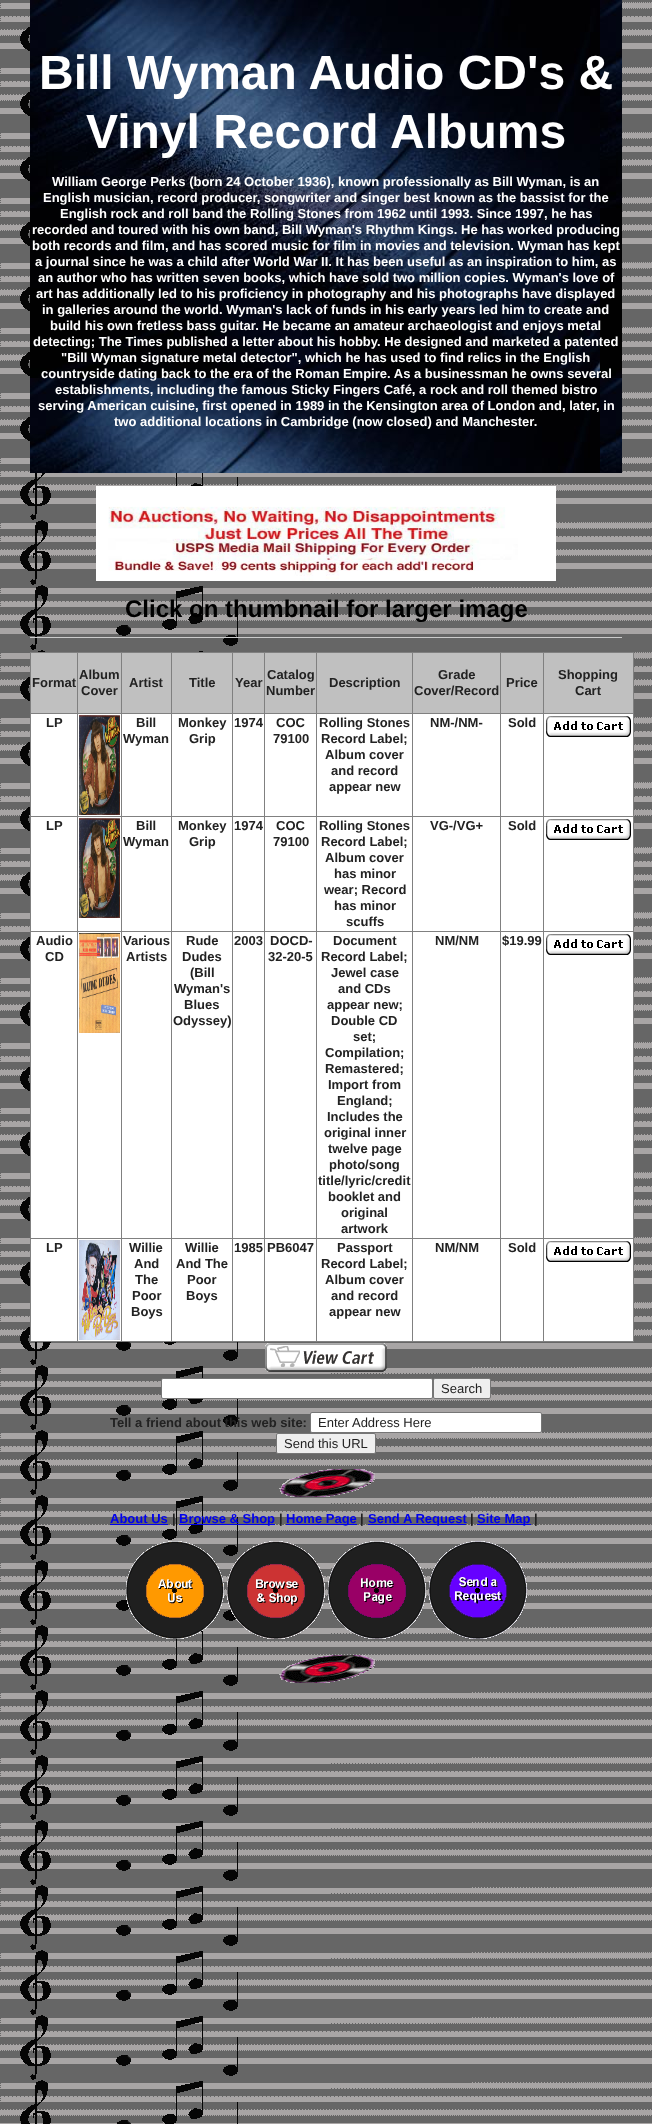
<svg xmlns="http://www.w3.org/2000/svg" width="652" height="2124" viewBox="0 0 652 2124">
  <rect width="100%" height="100%" fill="#666"/>
  <image x="0" y="2" width="652" height="2122" href="img/1.png"/>
  <image x="30" y="0" width="592" height="473" href="img/2.png"/>
  <image x="96" y="486" width="460" height="95" href="img/3.png"/>
  <path d="M30 637h592v1H30z" fill="#ccc"/>
  <path d="M31 714h602v627H31z" fill="#fff"/>
  <path d="M30 652h604v1H30z" fill="#808080"/>
  <path d="M633 652h1v690H633z" fill="#808080"/>
  <path d="M30 1341h604v1H30z" fill="#808080"/>
  <path d="M30 652h1v690H30z" fill="#808080"/>
  <path d="M31 653h46v60H31z" fill="#c0c0c0"/>
  <path d="M78 653h43v60H78z" fill="#c0c0c0"/>
  <path d="M543 713h91v1H543z" fill="#808080"/>
  <path d="M543 816h91v1H543z" fill="#808080"/>
  <path d="M543 931h91v1H543z" fill="#808080"/>
  <path d="M543 1238h91v1H543z" fill="#808080"/>
  <path d="M543 1238h1v104H543z" fill="#808080"/>
  <path d="M500 1238h44v1H500z" fill="#808080"/>
  <path d="M543 931h1v308H543z" fill="#808080"/>
  <path d="M500 931h44v1H500z" fill="#808080"/>
  <path d="M543 816h1v116H543z" fill="#808080"/>
  <path d="M500 816h44v1H500z" fill="#808080"/>
  <path d="M543 713h1v104H543z" fill="#808080"/>
  <path d="M500 713h44v1H500z" fill="#808080"/>
  <path d="M500 1238h1v104H500z" fill="#808080"/>
  <path d="M412 1238h89v1H412z" fill="#808080"/>
  <path d="M500 931h1v308H500z" fill="#808080"/>
  <path d="M412 931h89v1H412z" fill="#808080"/>
  <path d="M500 816h1v116H500z" fill="#808080"/>
  <path d="M412 816h89v1H412z" fill="#808080"/>
  <path d="M500 713h1v104H500z" fill="#808080"/>
  <path d="M412 713h89v1H412z" fill="#808080"/>
  <path d="M412 1238h1v104H412z" fill="#808080"/>
  <path d="M316 1238h97v1H316z" fill="#808080"/>
  <path d="M412 931h1v308H412z" fill="#808080"/>
  <path d="M316 931h97v1H316z" fill="#808080"/>
  <path d="M412 816h1v116H412z" fill="#808080"/>
  <path d="M316 816h97v1H316z" fill="#808080"/>
  <path d="M412 713h1v104H412z" fill="#808080"/>
  <path d="M316 713h97v1H316z" fill="#808080"/>
  <path d="M316 1238h1v104H316z" fill="#808080"/>
  <path d="M264 1238h53v1H264z" fill="#808080"/>
  <path d="M316 931h1v308H316z" fill="#808080"/>
  <path d="M264 931h53v1H264z" fill="#808080"/>
  <path d="M316 816h1v116H316z" fill="#808080"/>
  <path d="M264 816h53v1H264z" fill="#808080"/>
  <path d="M316 713h1v104H316z" fill="#808080"/>
  <path d="M264 713h53v1H264z" fill="#808080"/>
  <path d="M264 1238h1v104H264z" fill="#808080"/>
  <path d="M232 1238h33v1H232z" fill="#808080"/>
  <path d="M264 931h1v308H264z" fill="#808080"/>
  <path d="M232 931h33v1H232z" fill="#808080"/>
  <path d="M264 816h1v116H264z" fill="#808080"/>
  <path d="M232 816h33v1H232z" fill="#808080"/>
  <path d="M264 713h1v104H264z" fill="#808080"/>
  <path d="M232 713h33v1H232z" fill="#808080"/>
  <path d="M232 1238h1v104H232z" fill="#808080"/>
  <path d="M171 1238h62v1H171z" fill="#808080"/>
  <path d="M232 931h1v308H232z" fill="#808080"/>
  <path d="M171 931h62v1H171z" fill="#808080"/>
  <path d="M232 816h1v116H232z" fill="#808080"/>
  <path d="M171 816h62v1H171z" fill="#808080"/>
  <path d="M232 713h1v104H232z" fill="#808080"/>
  <path d="M171 713h62v1H171z" fill="#808080"/>
  <path d="M171 1238h1v104H171z" fill="#808080"/>
  <path d="M121 1238h51v1H121z" fill="#808080"/>
  <path d="M171 931h1v308H171z" fill="#808080"/>
  <path d="M121 931h51v1H121z" fill="#808080"/>
  <path d="M171 816h1v116H171z" fill="#808080"/>
  <path d="M121 816h51v1H121z" fill="#808080"/>
  <path d="M171 713h1v104H171z" fill="#808080"/>
  <path d="M121 713h51v1H121z" fill="#808080"/>
  <path d="M121 1238h1v104H121z" fill="#808080"/>
  <path d="M77 1238h45v1H77z" fill="#808080"/>
  <path d="M121 931h1v308H121z" fill="#808080"/>
  <path d="M77 931h45v1H77z" fill="#808080"/>
  <path d="M121 816h1v116H121z" fill="#808080"/>
  <path d="M77 816h45v1H77z" fill="#808080"/>
  <path d="M121 713h1v104H121z" fill="#808080"/>
  <path d="M77 713h45v1H77z" fill="#808080"/>
  <path d="M77 1238h1v104H77z" fill="#808080"/>
  <path d="M30 1238h48v1H30z" fill="#808080"/>
  <path d="M77 931h1v308H77z" fill="#808080"/>
  <path d="M30 931h48v1H30z" fill="#808080"/>
  <path d="M77 816h1v116H77z" fill="#808080"/>
  <path d="M30 816h48v1H30z" fill="#808080"/>
  <path d="M77 713h1v104H77z" fill="#808080"/>
  <path d="M30 713h48v1H30z" fill="#808080"/>
  <path d="M77 652h1v62H77z" fill="#808080"/>
  <path d="M122 653h49v60H122z" fill="#c0c0c0"/>
  <path d="M121 652h1v62H121z" fill="#808080"/>
  <path d="M172 653h60v60H172z" fill="#c0c0c0"/>
  <path d="M171 652h1v62H171z" fill="#808080"/>
  <path d="M233 653h31v60H233z" fill="#c0c0c0"/>
  <path d="M232 652h1v62H232z" fill="#808080"/>
  <path d="M265 653h51v60H265z" fill="#c0c0c0"/>
  <path d="M264 652h1v62H264z" fill="#808080"/>
  <path d="M317 653h95v60H317z" fill="#c0c0c0"/>
  <path d="M316 652h1v62H316z" fill="#808080"/>
  <path d="M413 653h87v60H413z" fill="#c0c0c0"/>
  <path d="M412 652h1v62H412z" fill="#808080"/>
  <path d="M501 653h42v60H501z" fill="#c0c0c0"/>
  <path d="M500 652h1v62H500z" fill="#808080"/>
  <path d="M544 653h89v60H544z" fill="#c0c0c0"/>
  <path d="M543 652h1v62H543z" fill="#808080"/>
  <image x="79" y="715" width="41" height="100" href="img/4.png"/>
  <image x="546" y="716" width="85" height="21" href="img/5.png"/>
  <image x="79" y="818" width="41" height="100" href="img/4.png"/>
  <image x="546" y="819" width="85" height="21" href="img/5.png"/>
  <image x="79" y="933" width="41" height="100" href="img/6.png"/>
  <image x="546" y="934" width="85" height="21" href="img/5.png"/>
  <image x="79" y="1240" width="41" height="100" href="img/7.png"/>
  <image x="546" y="1241" width="85" height="21" href="img/5.png"/>
  <image x="265" y="1343" width="122" height="29" href="img/8.png"/>
  <rect x="161.5" y="1378.5" width="271" height="20" rx="1.5" fill="#fff" stroke="#767676"/>
  <rect x="433.5" y="1378.5" width="57" height="20" rx="1.5" fill="#efefef" stroke="#767676"/>
  <rect x="310.5" y="1412.5" width="231" height="20" rx="1.5" fill="#fff" stroke="#767676"/>
  <rect x="276.5" y="1433.5" width="99" height="20" rx="1.5" fill="#efefef" stroke="#767676"/>
  <image x="279" y="1469" width="96" height="28" href="img/9.png"/>
  <path d="M110 1524h58v1H110z" fill="#00e"/>
  <path d="M179 1524h96v1H179z" fill="#00e"/>
  <path d="M286 1524h71v1H286z" fill="#00e"/>
  <path d="M368 1524h98v1H368z" fill="#00e"/>
  <path d="M477 1524h54v1H477z" fill="#00e"/>
  <image x="126" y="1541" width="98" height="98" href="img/10.png"/>
  <image x="227" y="1541" width="98" height="98" href="img/11.png"/>
  <image x="328" y="1541" width="98" height="98" href="img/12.png"/>
  <image x="429" y="1541" width="98" height="98" href="img/13.png"/>
  <image x="279" y="1655" width="96" height="28" href="img/14.png"/>
  <g font-family="Liberation Sans" font-size="48" font-weight="bold" fill="#fff">
    <text x="39" y="89">Bill Wyman Audio CD's &amp;</text>
    <text x="86" y="148">Vinyl Record Albums</text>
  </g>
  <g font-family="Liberation Sans" font-size="13" font-weight="bold" fill="#fff">
    <text x="52" y="186">William George Perks (born 24 October 1936), known professionally as Bill Wyman, is an</text>
    <text x="43" y="202">English musician, record producer, songwriter and singer best known as the bassist for the</text>
    <text x="60" y="218">English rock and roll band the Rolling Stones from 1962 until 1993. Since 1997, he has</text>
    <text x="32" y="234">recorded and toured with his own band, Bill Wyman's Rhythm Kings. He has worked producing</text>
    <text x="32" y="250">both records and film, and has scored music for film in movies and television. Wyman has kept</text>
    <text x="35" y="266">a journal since he was a child after World War II. It has been useful as an inspiration to him, as</text>
    <text x="38" y="282">an author who has written seven books, which have sold two million copies. Wyman's love of</text>
    <text x="36" y="298">art has additionally led to his proficiency in photography and his photographs have displayed</text>
    <text x="42" y="314">in galleries around the world. Wyman's lack of funds in his early years led him to create and</text>
    <text x="50" y="330">build his own fretless bass guitar. He became an amateur archaeologist and enjoys metal</text>
    <text x="33" y="346">detecting; The Times published a letter about his hobby. He designed and marketed a patented</text>
    <text x="61" y="362">"Bill Wyman signature metal detector", which he has used to find relics in the English</text>
    <text x="41" y="378">countryside dating back to the era of the Roman Empire. As a businessman he owns several</text>
    <text x="55" y="394">establishments, including the famous Sticky Fingers Café, a rock and roll themed bistro</text>
    <text x="38" y="410">serving American cuisine, first opened in 1989 in the Kensington area of London and, later, in</text>
    <text x="114" y="426">two additional locations in Cambridge (now closed) and Manchester.</text>
  </g>
  <text x="125" y="617" font-family="Liberation Sans" font-size="24" font-weight="bold" fill="#000">Click on thumbnail for larger image</text>
  <g font-family="Liberation Sans" font-size="13" font-weight="bold" fill="#222">
    <text x="32" y="687">Format</text>
    <text x="79" y="679">Album</text>
    <text x="81" y="695">Cover</text>
    <text x="129" y="687">Artist</text>
    <text x="189" y="687">Title</text>
    <text x="235" y="687">Year</text>
    <text x="267" y="679">Catalog</text>
    <text x="266" y="695">Number</text>
    <text x="329" y="687">Description</text>
    <text x="438" y="679">Grade</text>
    <text x="414" y="695">Cover/Record</text>
    <text x="506" y="687">Price</text>
    <text x="558" y="679">Shopping</text>
    <text x="575" y="695">Cart</text>
    <text x="46" y="727">LP</text>
    <text x="136" y="727">Bill</text>
    <text x="123" y="743">Wyman</text>
    <text x="178" y="727">Monkey</text>
    <text x="189" y="743">Grip</text>
    <text x="234" y="727">1974</text>
    <text x="276" y="727">COC</text>
    <text x="273" y="743">79100</text>
    <text x="319" y="727">Rolling Stones</text>
    <text x="321" y="743">Record Label;</text>
    <text x="325" y="759">Album cover</text>
    <text x="331" y="775">and record</text>
    <text x="329" y="791">appear new</text>
    <text x="430" y="727">NM-/NM-</text>
    <text x="508" y="727">Sold</text>
    <text x="46" y="830">LP</text>
    <text x="136" y="830">Bill</text>
    <text x="123" y="846">Wyman</text>
    <text x="178" y="830">Monkey</text>
    <text x="189" y="846">Grip</text>
    <text x="234" y="830">1974</text>
    <text x="276" y="830">COC</text>
    <text x="273" y="846">79100</text>
    <text x="319" y="830">Rolling Stones</text>
    <text x="321" y="846">Record Label;</text>
    <text x="325" y="862">Album cover</text>
    <text x="334" y="878">has minor</text>
    <text x="324" y="894">wear; Record</text>
    <text x="334" y="910">has minor</text>
    <text x="346" y="926">scuffs</text>
    <text x="430" y="830">VG-/VG+</text>
    <text x="508" y="830">Sold</text>
    <text x="36" y="945">Audio</text>
    <text x="45" y="961">CD</text>
    <text x="123" y="945">Various</text>
    <text x="126" y="961">Artists</text>
    <text x="186" y="945">Rude</text>
    <text x="182" y="961">Dudes</text>
    <text x="190" y="977">(Bill</text>
    <text x="174" y="993">Wyman's</text>
    <text x="184" y="1009">Blues</text>
    <text x="173" y="1025">Odyssey)</text>
    <text x="234" y="945">2003</text>
    <text x="270" y="945">DOCD-</text>
    <text x="268" y="961">32-20-5</text>
    <text x="333" y="945">Document</text>
    <text x="321" y="961">Record Label;</text>
    <text x="331" y="977">Jewel case</text>
    <text x="338" y="993">and CDs</text>
    <text x="327" y="1009">appear new;</text>
    <text x="331" y="1025">Double CD</text>
    <text x="353" y="1041">set;</text>
    <text x="325" y="1057">Compilation;</text>
    <text x="325" y="1073">Remastered;</text>
    <text x="328" y="1089">Import from</text>
    <text x="337" y="1105">England;</text>
    <text x="327" y="1121">Includes the</text>
    <text x="324" y="1137">original inner</text>
    <text x="328" y="1153">twelve page</text>
    <text x="329" y="1169">photo/song</text>
    <text x="318" y="1185">title/lyric/credit</text>
    <text x="328" y="1201">booklet and</text>
    <text x="341" y="1217">original</text>
    <text x="341" y="1233">artwork</text>
    <text x="435" y="945">NM/NM</text>
    <text x="502" y="945">$19.99</text>
    <text x="46" y="1252">LP</text>
    <text x="129" y="1252">Willie</text>
    <text x="134" y="1268">And</text>
    <text x="135" y="1284">The</text>
    <text x="132" y="1300">Poor</text>
    <text x="131" y="1316">Boys</text>
    <text x="185" y="1252">Willie</text>
    <text x="176" y="1268">And The</text>
    <text x="187" y="1284">Poor</text>
    <text x="186" y="1300">Boys</text>
    <text x="234" y="1252">1985</text>
    <text x="267" y="1252">PB6047</text>
    <text x="337" y="1252">Passport</text>
    <text x="321" y="1268">Record Label;</text>
    <text x="325" y="1284">Album cover</text>
    <text x="331" y="1300">and record</text>
    <text x="329" y="1316">appear new</text>
    <text x="435" y="1252">NM/NM</text>
    <text x="508" y="1252">Sold</text>
  </g>
  <text x="441" y="1393" font-family="Liberation Sans" font-size="13" fill="#222">Search</text>
  <text x="110" y="1427" font-family="Liberation Sans" font-size="13" font-weight="bold" fill="#222">Tell a friend about this web site:</text>
  <g font-family="Liberation Sans" font-size="13" fill="#222">
    <text x="318" y="1427">Enter Address Here</text>
    <text x="284" y="1448">Send this URL</text>
  </g>
  <text x="110" y="1523" font-family="Liberation Sans" font-size="13" font-weight="bold" fill="#00e">About Us</text>
  <text x="172" y="1523" font-family="Liberation Sans" font-size="13" font-weight="bold" fill="#222">|</text>
  <text x="179" y="1523" font-family="Liberation Sans" font-size="13" font-weight="bold" fill="#00e">Browse &amp; Shop</text>
  <text x="279" y="1523" font-family="Liberation Sans" font-size="13" font-weight="bold" fill="#222">|</text>
  <text x="286" y="1523" font-family="Liberation Sans" font-size="13" font-weight="bold" fill="#00e">Home Page</text>
  <text x="360" y="1523" font-family="Liberation Sans" font-size="13" font-weight="bold" fill="#222">|</text>
  <text x="368" y="1523" font-family="Liberation Sans" font-size="13" font-weight="bold" fill="#00e">Send A Request</text>
  <text x="470" y="1523" font-family="Liberation Sans" font-size="13" font-weight="bold" fill="#222">|</text>
  <text x="477" y="1523" font-family="Liberation Sans" font-size="13" font-weight="bold" fill="#00e">Site Map</text>
  <text x="534" y="1523" font-family="Liberation Sans" font-size="13" font-weight="bold" fill="#222">|</text>
</svg>
